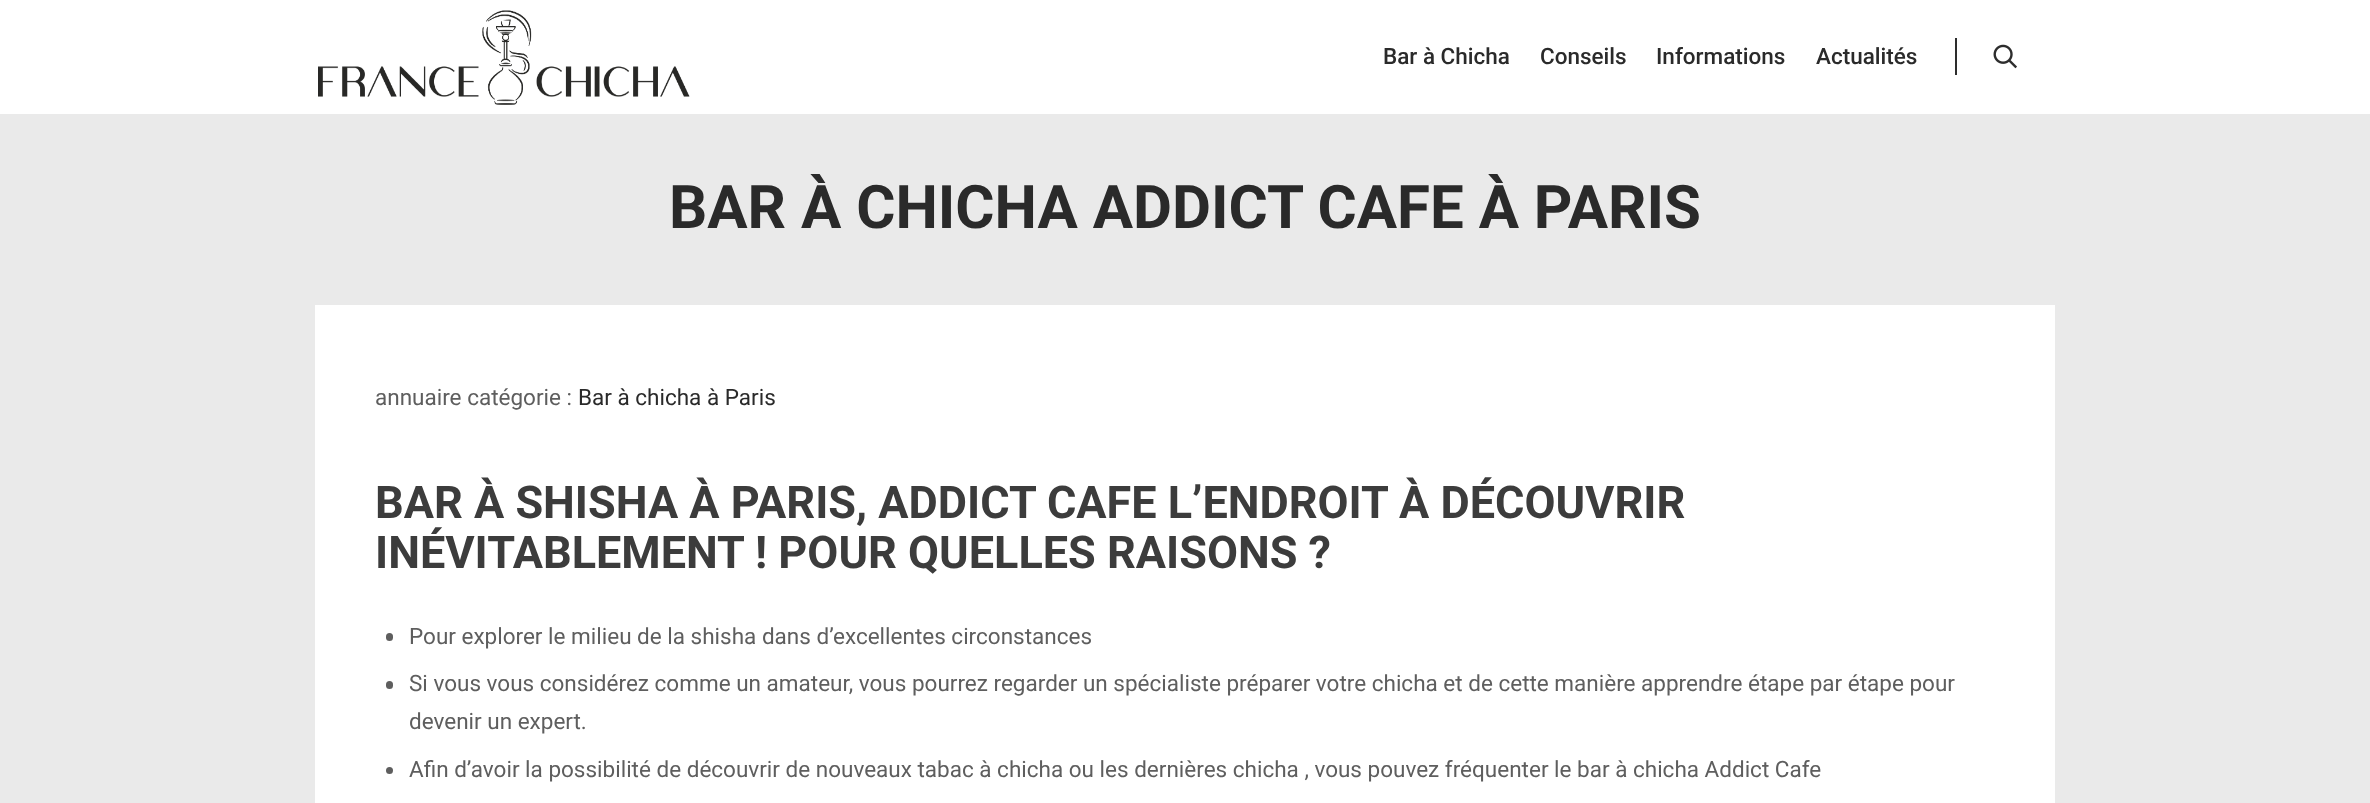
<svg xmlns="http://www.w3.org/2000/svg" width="2370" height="803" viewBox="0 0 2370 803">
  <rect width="100%" height="100%" fill="#eaeaea"/>
  <path d="M0 0h2370v114H0z" fill="#fff"/>
  <image x="318" y="10" width="372" height="95" href="img/1.png"/>
  <path d="M1955 38h2v37H1955z" fill="#2d2d2d"/>
  <image x="1993" y="44" width="24" height="25" href="img/2.png"/>
  <path d="M315 305h1740v498H315z" fill="#fff"/>
  <rect x="386" y="633" width="7" height="8" rx="3.5" fill="#5e5e5e"/>
  <rect x="386" y="681" width="7" height="8" rx="3.5" fill="#5e5e5e"/>
  <circle cx="389.5" cy="770.5" r="3.5" fill="#5e5e5e"/>
  <g font-family="Roboto" font-size="22.5" font-weight="500" fill="#2a2a2a">
    <text x="1383" y="64">Bar à Chicha</text>
    <text x="1540" y="64">Conseils</text>
    <text x="1656" y="64">Informations</text>
    <text x="1816" y="64">Actualités</text>
  </g>
  <text x="669" y="228" font-family="Roboto" font-size="60" font-weight="bold" fill="#2a2a2a">BAR À CHICHA ADDICT CAFE À PARIS</text>
  <text x="375" y="405" font-family="Roboto" font-size="22.5" fill="#5e5e5e">annuaire catégorie :</text>
  <text x="578" y="405" font-family="Roboto" font-size="22.5" fill="#2a2a2a">Bar à chicha à Paris</text>
  <g font-family="Roboto" font-size="45" font-weight="bold" fill="#3c3c3c">
    <text x="375" y="518">BAR À SHISHA À PARIS, ADDICT CAFE L’ENDROIT À DÉCOUVRIR</text>
    <text x="375" y="568">INÉVITABLEMENT ! POUR QUELLES RAISONS ?</text>
  </g>
  <g font-family="Roboto" font-size="22.5" fill="#5e5e5e">
    <text x="409" y="644">Pour explorer le milieu de la shisha dans d’excellentes circonstances</text>
    <text x="409" y="691">Si vous vous considérez comme un amateur, vous pourrez regarder un spécialiste préparer votre chicha et de cette manière apprendre étape par étape pour</text>
    <text x="409" y="729">devenir un expert.</text>
    <text x="409" y="777">Afin d’avoir la possibilité de découvrir de nouveaux tabac à chicha ou les dernières chicha , vous pouvez fréquenter le bar à chicha Addict Cafe</text>
  </g>
</svg>
